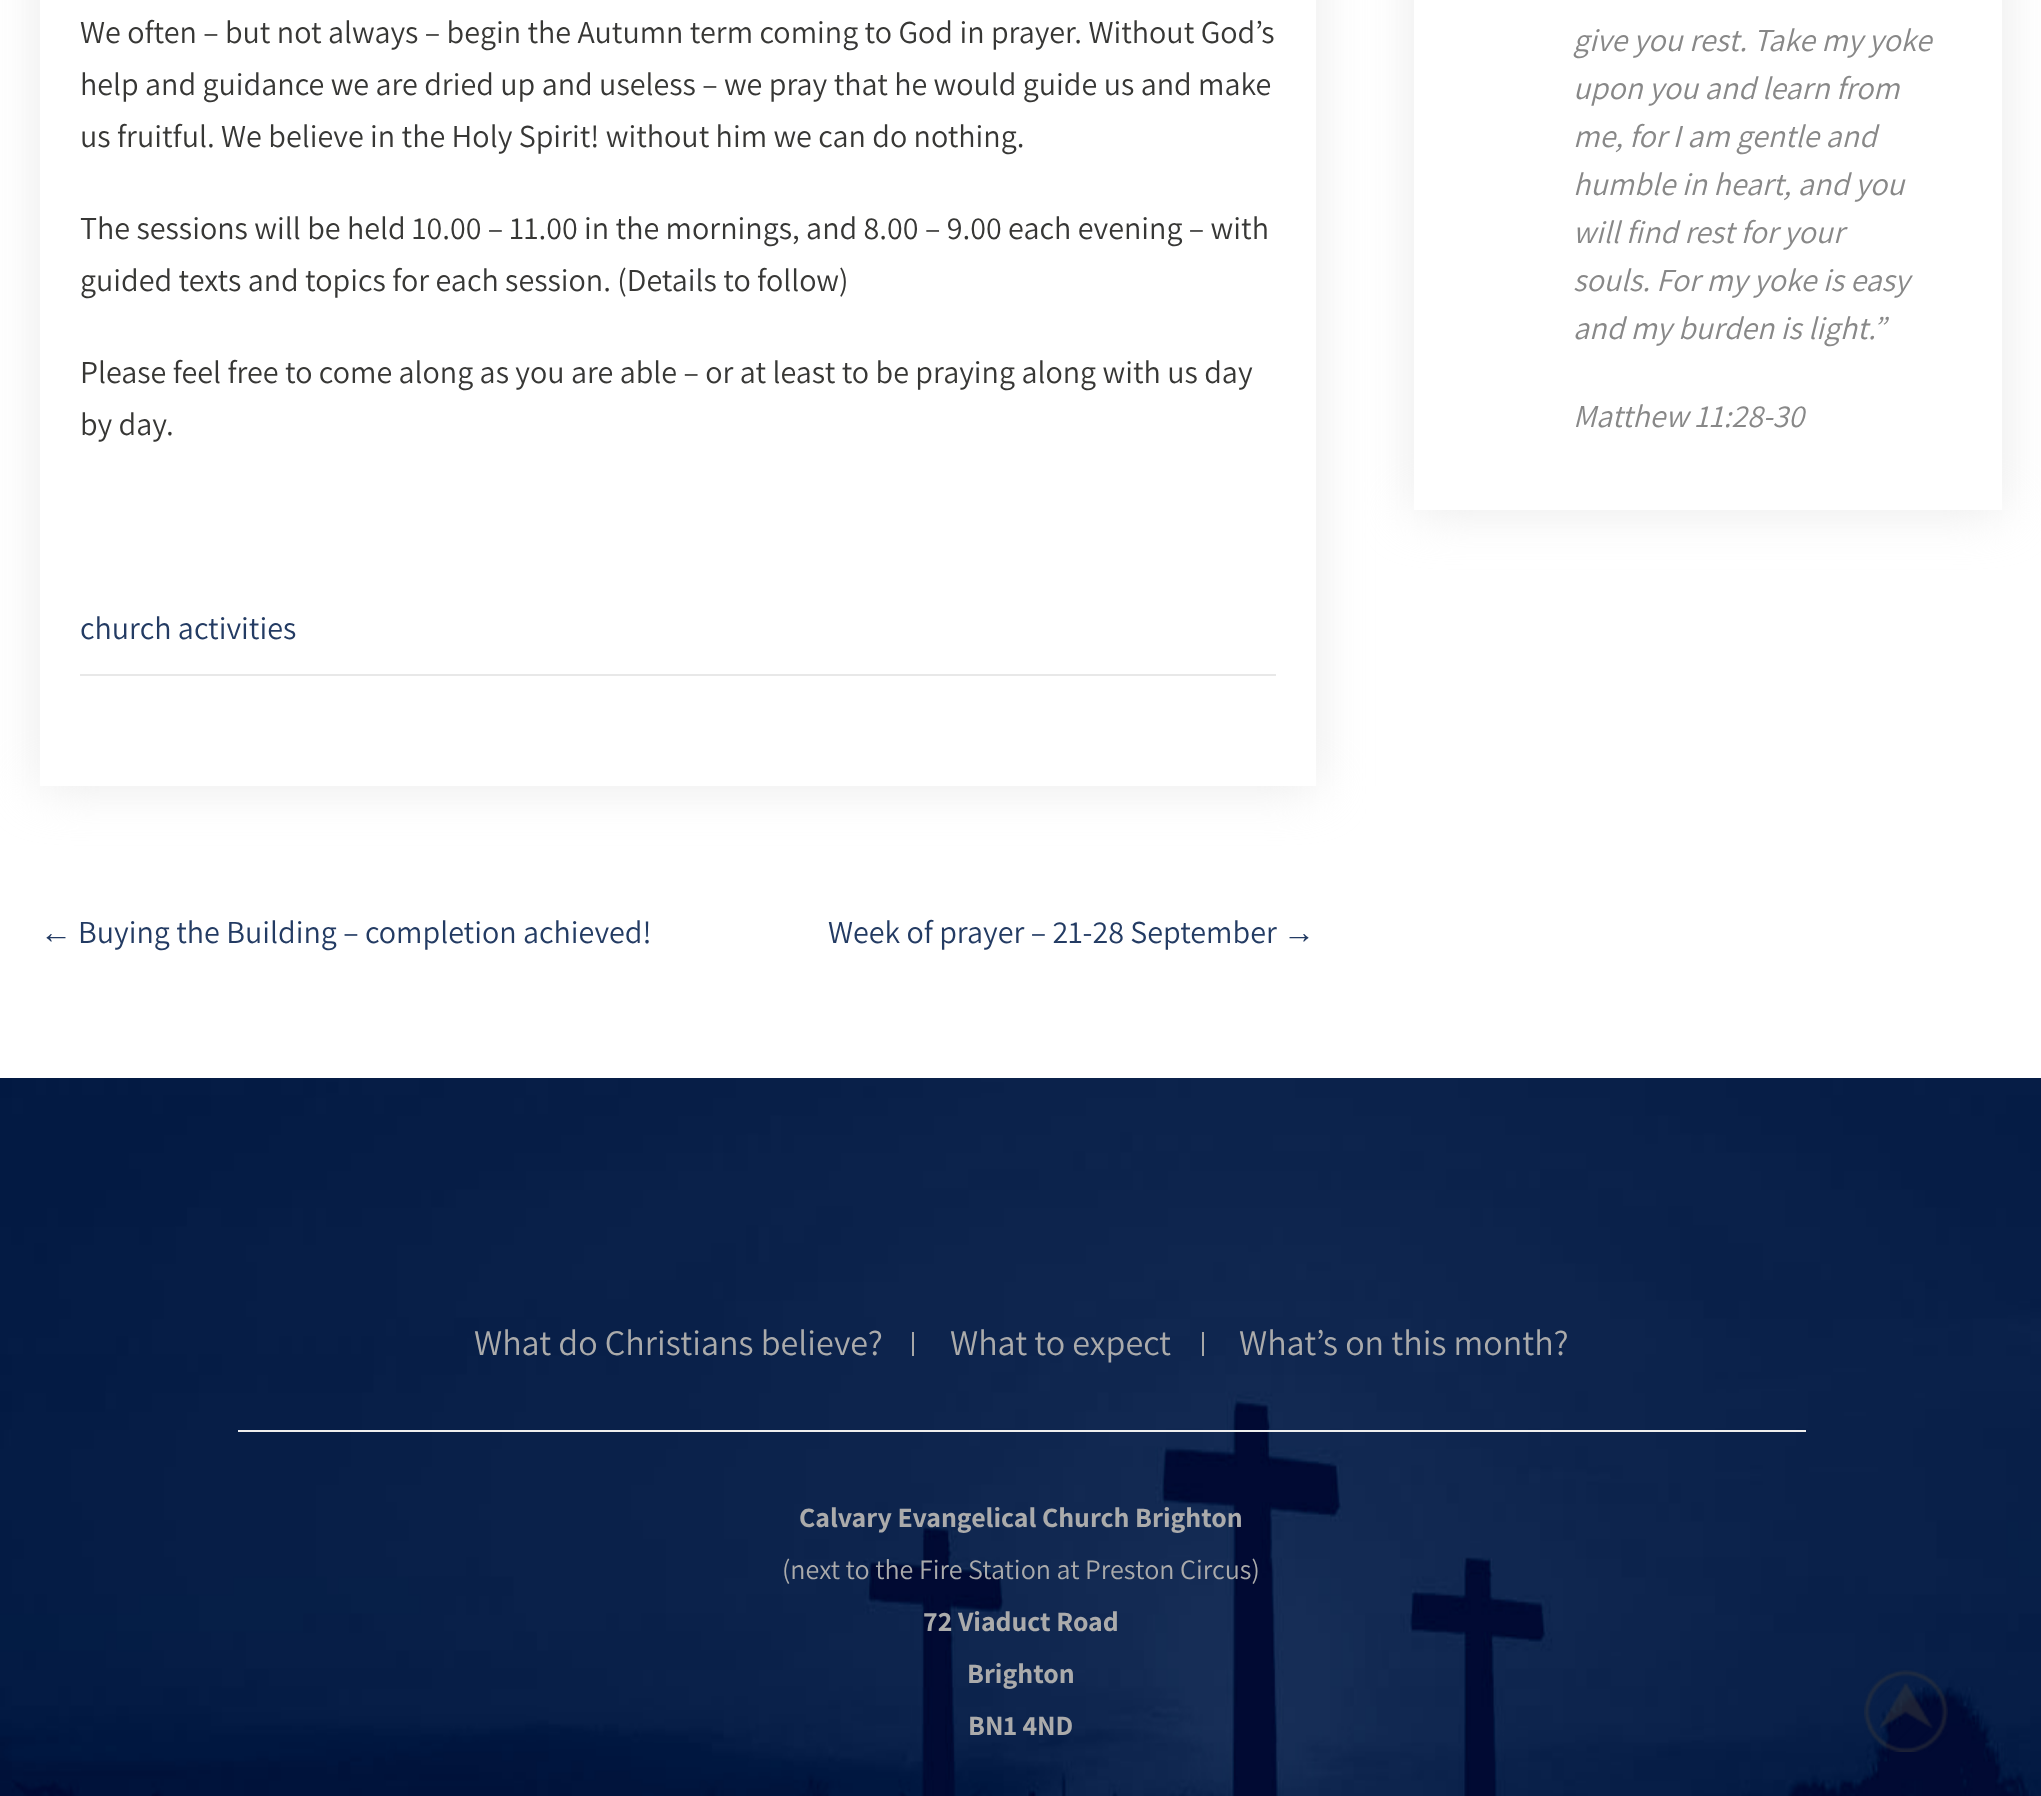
<svg xmlns="http://www.w3.org/2000/svg" width="2041" height="1796" viewBox="0 0 2041 1796">
  <defs>
    <clipPath id="clip1"><path d="M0 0H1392V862H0ZM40-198H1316V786H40Z" clip-rule="evenodd"/></clipPath>
    <clipPath id="clip2"><path d="M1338 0H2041V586H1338ZM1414-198H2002V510H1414Z" clip-rule="evenodd"/></clipPath>
  </defs>
  <rect width="100%" height="100%" fill="#fff"/>
  <g clip-path="url(#clip1)">
    <path d="M40 -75h1276v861H40z" fill="#e9e9e9" filter="blur(25px)"/>
  </g>
  <path d="M80 674h1196v2H80z" fill="#e8e8e8"/>
  <g clip-path="url(#clip2)">
    <path d="M1414 -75h588v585H1414z" fill="#e9e9e9" filter="blur(25px)"/>
  </g>
  <image x="0" y="1078" width="2041" height="718" href="img/1.png"/>
  <path d="M912 1332h2v24H912z" fill="#a7a7a7"/>
  <path d="M1202 1332h2v24H1202z" fill="#a7a7a7"/>
  <path d="M238 1430h1568v2H238z" fill="#eee"/>
  <image x="1864" y="1670" width="84" height="82" href="img/2.png"/>
  <g font-family="Assistant" font-size="32" font-weight="200" fill="#373735">
    <text x="80" y="43">We often – but not always – begin the Autumn term coming to God in prayer. Without God’s</text>
    <text x="80" y="95">help and guidance we are dried up and useless – we pray that he would guide us and make</text>
    <text x="80" y="147">us fruitful. We believe in the Holy Spirit! without him we can do nothing.</text>
    <text x="80" y="239">The sessions will be held 10.00 – 11.00 in the mornings, and 8.00 – 9.00 each evening – with</text>
    <text x="80" y="291">guided texts and topics for each session. (Details to follow)</text>
    <text x="80" y="383">Please feel free to come along as you are able – or at least to be praying along with us day</text>
    <text x="80" y="435">by day.</text>
  </g>
  <text x="80" y="639" font-family="Assistant" font-size="32" font-weight="200" fill="#233b63">church activities</text>
  <text x="40" y="943" font-family="Liberation Serif" font-size="32" fill="#233b63">←</text>
  <g font-family="Assistant" font-size="32" font-weight="200" fill="#233b63">
    <text x="78" y="943">Buying the Building – completion achieved!</text>
    <text x="828" y="943">Week of prayer – 21-28 September</text>
  </g>
  <text x="1283" y="943" font-family="Liberation Serif" font-size="32" fill="#233b63">→</text>
  <g font-family="Assistant" font-size="32" font-weight="200" font-style="italic" fill="#888">
    <text x="1573" y="51">give you rest. Take my yoke</text>
    <text x="1573" y="99">upon you and learn from</text>
    <text x="1573" y="147">me, for I am gentle and</text>
    <text x="1573" y="195">humble in heart, and you</text>
    <text x="1573" y="243">will find rest for your</text>
    <text x="1573" y="291">souls. For my yoke is easy</text>
    <text x="1573" y="339">and my burden is light.”</text>
    <text x="1573" y="427">Matthew 11:28-30</text>
  </g>
  <g font-family="Assistant" font-size="36" font-weight="200" fill="#ababab">
    <text x="474" y="1355">What do Christians believe?</text>
    <text x="950" y="1355">What to expect</text>
    <text x="1239" y="1355">What’s on this month?</text>
  </g>
  <text x="799" y="1527" font-family="Assistant" font-size="28" font-weight="bold" fill="#ababab">Calvary Evangelical Church Brighton</text>
  <text x="782" y="1579" font-family="Assistant" font-size="28" font-weight="200" fill="#ababab">(next to the Fire Station at Preston Circus)</text>
  <g font-family="Assistant" font-size="28" font-weight="bold" fill="#ababab">
    <text x="923" y="1631">72 Viaduct Road</text>
    <text x="967" y="1683">Brighton</text>
    <text x="968" y="1735">BN1 4ND</text>
  </g>
</svg>
